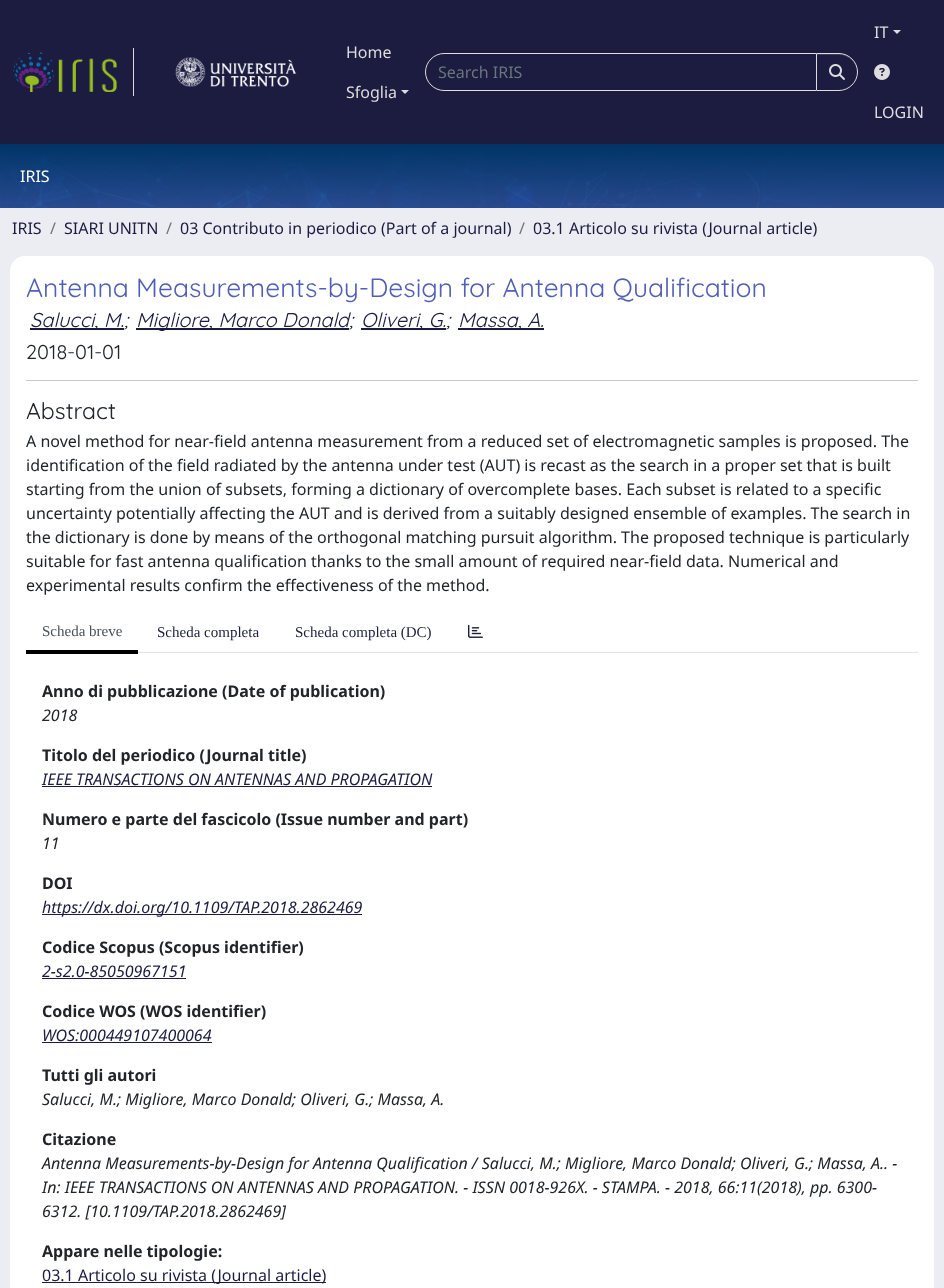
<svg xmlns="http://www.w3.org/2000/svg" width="944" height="1288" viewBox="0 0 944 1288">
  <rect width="100%" height="100%" fill="#ecedf2"/>
  <path d="M0 0h944v144H0z" fill="#1b1c40"/>
  <path d="M133 48h1v48H133z" fill="#ddd"/>
  <image x="12" y="52" width="105" height="40" href="img/1.png"/>
  <image x="175" y="57" width="122" height="30" href="img/2.png"/>
  <path d="M401 90H409L405 94Z" fill="#ddd"/>
  <path d="M444 53.5H816.5V90.5H444C434 90.5 425.5 82 425.5 72C425.5 62 434 53.5 444 53.5Z" fill="none" stroke="#ddd"/>
  <rect x="816" y="54" width="42" height="38" rx="19" fill="#00000012" filter="blur(0.5px)"/>
  <path d="M816 53H839C849.5 53 858 61.5 858 72C858 82.5 849.5 91 839 91H816Z" fill="#1b1c40"/>
  <path d="M817 55H839C849 55 857 63 857 72C857 64 851 56 843 54H817Z" fill="#3d3e5d"/>
  <path d="M816.5 53.5H839C849 53.5 857.5 62 857.5 72C857.5 82 849 90.5 839 90.5H816.5Z" fill="none" stroke="#ddd"/>
  <image x="829" y="64" width="16" height="16" href="img/3.png"/>
  <path d="M893 30H901L897 34Z" fill="#ddd"/>
  <image x="874" y="64" width="16" height="16" href="img/4.png"/>
  <image x="0" y="144" width="944" height="64" href="img/5.png"/>
  <rect x="10" y="256" width="924" height="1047" rx="15" fill="#fff"/>
  <path d="M30 328h94v2H30z" fill="#1b1c40"/>
  <path d="M136 328h213v2H136z" fill="#1b1c40"/>
  <path d="M361 328h85v2H361z" fill="#1b1c40"/>
  <path d="M458 328h86v2H458z" fill="#1b1c40"/>
  <path d="M26 380h892v1H26z" fill="#c8c9ca"/>
  <path d="M138 652h780v1H138z" fill="#dee2e6"/>
  <path d="M26 650h112v4H26z" fill="#000"/>
  <image x="468" y="624" width="15" height="14" href="img/6.png"/>
  <path d="M42 786h390v1H42z" fill="#1b1c40"/>
  <path d="M42 914h320v1H42z" fill="#1b1c40"/>
  <path d="M42 978h144v1H42z" fill="#1b1c40"/>
  <path d="M42 1042h170v1H42z" fill="#1b1c40"/>
  <path d="M42 1282h284v1H42z" fill="#1b1c40"/>
  <g font-family="Noto Sans" font-size="16" fill="#ddd">
    <text x="346" y="58">Home</text>
    <text x="346" y="98">Sfoglia</text>
  </g>
  <text x="438" y="78" font-family="Noto Sans" font-size="16" fill="#6c757d">Search IRIS</text>
  <g font-family="Noto Sans" font-size="16" fill="#ddd">
    <text x="874" y="38">IT</text>
    <text x="874" y="118">LOGIN</text>
  </g>
  <text x="20" y="182" font-family="Noto Sans" font-size="16" fill="#fff">IRIS</text>
  <text x="12" y="234" font-family="Noto Sans" font-size="16" fill="#1b1c40">IRIS</text>
  <text x="50" y="234" font-family="Noto Sans" font-size="16" fill="#6c757d">/</text>
  <text x="64" y="234" font-family="Noto Sans" font-size="16" fill="#1b1c40">SIARI UNITN</text>
  <text x="166" y="234" font-family="Noto Sans" font-size="16" fill="#6c757d">/</text>
  <text x="180" y="234" font-family="Noto Sans" font-size="16" fill="#1b1c40">03 Contributo in periodico (Part of a journal)</text>
  <text x="519" y="234" font-family="Noto Sans" font-size="16" fill="#6c757d">/</text>
  <text x="533" y="234" font-family="Noto Sans" font-size="16" fill="#1b1c40">03.1 Articolo su rivista (Journal article)</text>
  <text x="26" y="297" font-family="Quicksand" font-size="26.45" fill="#515fb5">Antenna Measurements-by-Design for Antenna Qualification</text>
  <text x="30" y="327" font-family="Quicksand" font-size="20" font-style="italic" fill="#1b1c40">Salucci, M.</text>
  <text x="124" y="327" font-family="Quicksand" font-size="20" font-style="italic" fill="#212529">;</text>
  <text x="136" y="327" font-family="Quicksand" font-size="20" font-style="italic" fill="#1b1c40">Migliore, Marco Donald</text>
  <text x="349" y="327" font-family="Quicksand" font-size="20" font-style="italic" fill="#212529">;</text>
  <text x="361" y="327" font-family="Quicksand" font-size="20" font-style="italic" fill="#1b1c40">Oliveri, G.</text>
  <text x="446" y="327" font-family="Quicksand" font-size="20" font-style="italic" fill="#212529">;</text>
  <text x="458" y="327" font-family="Quicksand" font-size="20" font-style="italic" fill="#1b1c40">Massa, A.</text>
  <text x="26" y="359" font-family="Quicksand" font-size="20" fill="#212529">2018-01-01</text>
  <text x="26" y="419" font-family="Quicksand" font-size="23" fill="#212529">Abstract</text>
  <g font-family="Noto Sans" font-size="16" fill="#212529">
    <text x="26" y="447">A novel method for near-field antenna measurement from a reduced set of electromagnetic samples is proposed. The</text>
    <text x="26" y="471">identification of the field radiated by the antenna under test (AUT) is recast as the search in a proper set that is built</text>
    <text x="26" y="495">starting from the union of subsets, forming a dictionary of overcomplete bases. Each subset is related to a specific</text>
    <text x="26" y="519">uncertainty potentially affecting the AUT and is derived from a suitably designed ensemble of examples. The search in</text>
    <text x="26" y="543">the dictionary is done by means of the orthogonal matching pursuit algorithm. The proposed technique is particularly</text>
    <text x="26" y="567">suitable for fast antenna qualification thanks to the small amount of required near-field data. Numerical and</text>
    <text x="26" y="591">experimental results confirm the effectiveness of the method.</text>
  </g>
  <text x="42" y="636" font-family="Liberation Serif" font-size="15" fill="#495057">Scheda breve</text>
  <g font-family="Liberation Serif" font-size="15" fill="#1b1c40">
    <text x="157" y="637">Scheda completa</text>
    <text x="295" y="637">Scheda completa (DC)</text>
  </g>
  <text x="42" y="697" font-family="Noto Sans" font-size="16" font-weight="bold" fill="#212529">Anno di pubblicazione (Date of publication)</text>
  <text x="42" y="721" font-family="Noto Sans" font-size="16" font-style="italic" fill="#212529">2018</text>
  <text x="42" y="761" font-family="Noto Sans" font-size="16" font-weight="bold" fill="#212529">Titolo del periodico (Journal title)</text>
  <text x="42" y="785" font-family="Noto Sans" font-size="16" font-style="italic" fill="#1b1c40">IEEE TRANSACTIONS ON ANTENNAS AND PROPAGATION</text>
  <text x="42" y="825" font-family="Noto Sans" font-size="16" font-weight="bold" fill="#212529">Numero e parte del fascicolo (Issue number and part)</text>
  <text x="42" y="849" font-family="Noto Sans" font-size="16" font-style="italic" fill="#212529">11</text>
  <text x="42" y="889" font-family="Noto Sans" font-size="16" font-weight="bold" fill="#212529">DOI</text>
  <text x="42" y="913" font-family="Noto Sans" font-size="16" font-style="italic" fill="#1b1c40">https://dx.doi.org/10.1109/TAP.2018.2862469</text>
  <text x="42" y="953" font-family="Noto Sans" font-size="16" font-weight="bold" fill="#212529">Codice Scopus (Scopus identifier)</text>
  <text x="42" y="977" font-family="Noto Sans" font-size="16" font-style="italic" fill="#1b1c40">2-s2.0-85050967151</text>
  <text x="42" y="1017" font-family="Noto Sans" font-size="16" font-weight="bold" fill="#212529">Codice WOS (WOS identifier)</text>
  <text x="42" y="1041" font-family="Noto Sans" font-size="16" font-style="italic" fill="#1b1c40">WOS:000449107400064</text>
  <text x="42" y="1081" font-family="Noto Sans" font-size="16" font-weight="bold" fill="#212529">Tutti gli autori</text>
  <text x="42" y="1105" font-family="Noto Sans" font-size="16" font-style="italic" fill="#212529">Salucci, M.; Migliore, Marco Donald; Oliveri, G.; Massa, A.</text>
  <text x="42" y="1145" font-family="Noto Sans" font-size="16" font-weight="bold" fill="#212529">Citazione</text>
  <g font-family="Noto Sans" font-size="16" font-style="italic" fill="#212529">
    <text x="42" y="1169">Antenna Measurements-by-Design for Antenna Qualification / Salucci, M.; Migliore, Marco Donald; Oliveri, G.; Massa, A.. -</text>
    <text x="42" y="1193">In: IEEE TRANSACTIONS ON ANTENNAS AND PROPAGATION. - ISSN 0018-926X. - STAMPA. - 2018, 66:11(2018), pp. 6300-</text>
    <text x="42" y="1217">6312. [10.1109/TAP.2018.2862469]</text>
  </g>
  <text x="42" y="1257" font-family="Noto Sans" font-size="16" font-weight="bold" fill="#212529">Appare nelle tipologie:</text>
  <text x="42" y="1281" font-family="Noto Sans" font-size="16" fill="#1b1c40">03.1 Articolo su rivista (Journal article)</text>
</svg>
